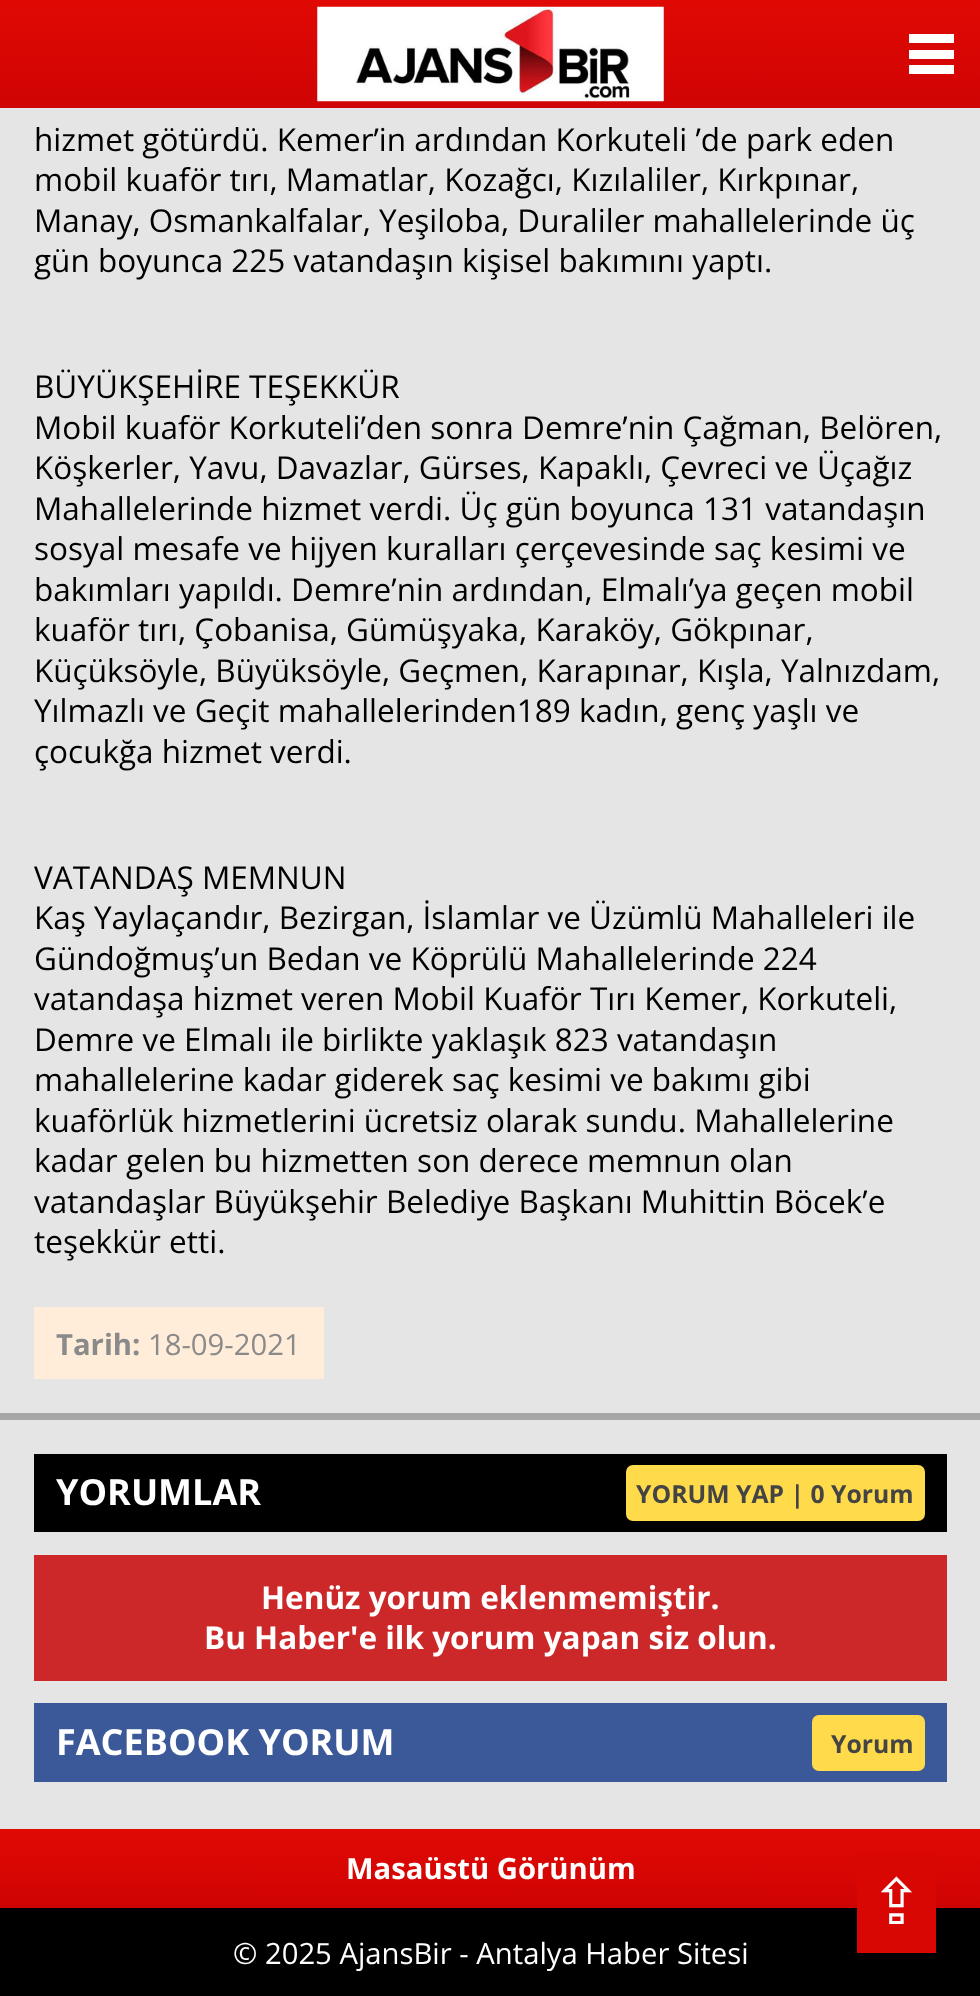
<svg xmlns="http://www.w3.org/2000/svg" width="980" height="1996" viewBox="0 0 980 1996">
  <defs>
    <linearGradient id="g1" gradientUnits="userSpaceOnUse" x1="491" y1="0" x2="491" y2="108"><stop offset="0" stop-color="#e00904"/><stop offset="1" stop-color="#cf0404"/></linearGradient>
    <linearGradient id="g2" gradientUnits="userSpaceOnUse" x1="491" y1="1829" x2="491" y2="1908"><stop offset="0" stop-color="#e00904"/><stop offset="1" stop-color="#cf0404"/></linearGradient>
  </defs>
  <rect width="100%" height="100%" fill="#e5e5e5"/>
  <path d="M0 0h980v108H0z" fill="url(#g1)"/>
  <image x="317" y="6" width="347" height="96" href="img/1.png"/>
  <path d="M909 34h45v9H909z" fill="#fff"/>
  <path d="M909 50h45v9H909z" fill="#fff"/>
  <path d="M909 65h45v9H909z" fill="#fff"/>
  <path d="M34 1307h290v72H34z" fill="#ffedd9"/>
  <path d="M0 1413h980v7H0z" fill="#a6a6a6"/>
  <path d="M34 1454h913v78H34z" fill="#000"/>
  <rect x="626" y="1465" width="299" height="56" rx="7" fill="#ffdb4c"/>
  <path d="M34 1555h913v126H34z" fill="#cc282a"/>
  <path d="M34 1703h913v79H34z" fill="#3b5998"/>
  <rect x="812" y="1715" width="113" height="56" rx="7" fill="#ffdb4c"/>
  <path d="M0 1829h980v79H0z" fill="url(#g2)"/>
  <path d="M-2 1910h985v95H-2z" fill="#0000001a" filter="blur(3.5px)"/>
  <path d="M0 1908h980v88H0z" fill="#000"/>
  <path d="M857 1852h79v101H857z" fill="#d80704"/>
  <g font-family="Open Sans" font-size="31.5" fill="#000">
    <text x="34" y="151">hizmet götürdü. Kemer’in ardından Korkuteli ’de park eden</text>
    <text x="34" y="191">mobil kuaför tırı, Mamatlar, Kozağcı, Kızılaliler, Kırkpınar,</text>
    <text x="34" y="232">Manay, Osmankalfalar, Yeşiloba, Duraliler mahallelerinde üç</text>
    <text x="34" y="272">gün boyunca 225 vatandaşın kişisel bakımını yaptı.</text>
    <text x="34" y="398">BÜYÜKŞEHİRE TEŞEKKÜR</text>
    <text x="34" y="439">Mobil kuaför Korkuteli’den sonra Demre’nin Çağman, Belören,</text>
    <text x="34" y="479">Köşkerler, Yavu, Davazlar, Gürses, Kapaklı, Çevreci ve Üçağız</text>
    <text x="34" y="520">Mahallelerinde hizmet verdi. Üç gün boyunca 131 vatandaşın</text>
    <text x="34" y="560">sosyal mesafe ve hijyen kuralları çerçevesinde saç kesimi ve</text>
    <text x="34" y="601">bakımları yapıldı. Demre’nin ardından, Elmalı’ya geçen mobil</text>
    <text x="34" y="641">kuaför tırı, Çobanisa, Gümüşyaka, Karaköy, Gökpınar,</text>
    <text x="34" y="682">Küçüksöyle, Büyüksöyle, Geçmen, Karapınar, Kışla, Yalnızdam,</text>
    <text x="34" y="722">Yılmazlı ve Geçit mahallelerinden189 kadın, genç yaşlı ve</text>
    <text x="34" y="763">çocukğa hizmet verdi.</text>
    <text x="34" y="889">VATANDAŞ MEMNUN</text>
    <text x="34" y="929">Kaş Yaylaçandır, Bezirgan, İslamlar ve Üzümlü Mahalleleri ile</text>
    <text x="34" y="970">Gündoğmuş’un Bedan ve Köprülü Mahallelerinde 224</text>
    <text x="34" y="1010">vatandaşa hizmet veren Mobil Kuaför Tırı Kemer, Korkuteli,</text>
    <text x="34" y="1051">Demre ve Elmalı ile birlikte yaklaşık 823 vatandaşın</text>
    <text x="34" y="1091">mahallelerine kadar giderek saç kesimi ve bakımı gibi</text>
    <text x="34" y="1132">kuaförlük hizmetlerini ücretsiz olarak sundu. Mahallelerine</text>
    <text x="34" y="1172">kadar gelen bu hizmetten son derece memnun olan</text>
    <text x="34" y="1213">vatandaşlar Büyükşehir Belediye Başkanı Muhittin Böcek’e</text>
    <text x="34" y="1253">teşekkür etti.</text>
  </g>
  <text x="56" y="1355" font-family="Open Sans" font-size="29.25" font-weight="bold" fill="#8a8a8a">Tarih:</text>
  <text x="148" y="1355" font-family="Open Sans" font-size="29.25" fill="#8a8a8a">18-09-2021</text>
  <text x="56" y="1505" font-family="Open Sans" font-size="36" font-weight="bold" fill="#fff">YORUMLAR</text>
  <text x="636" y="1503" font-family="Open Sans" font-size="24.75" font-weight="bold" fill="#444">YORUM YAP | 0 Yorum</text>
  <g font-family="Open Sans" font-size="31.5" font-weight="bold" fill="#fff">
    <text x="261" y="1609">Henüz yorum eklenmemiştir.</text>
    <text x="204" y="1649">Bu Haber'e ilk yorum yapan siz olun.</text>
  </g>
  <text x="56" y="1755" font-family="Open Sans" font-size="36" font-weight="bold" fill="#fff">FACEBOOK YORUM</text>
  <text x="831" y="1753" font-family="Open Sans" font-size="24.75" font-weight="bold" fill="#444">Yorum</text>
  <text x="346" y="1879" font-family="Open Sans" font-size="29.25" font-weight="bold" fill="#fff">Masaüstü Görünüm</text>
  <text x="233" y="1964" font-family="Open Sans" font-size="29.25" fill="#fff">© 2025 AjansBir - Antalya Haber Sitesi</text>
  <text x="870" y="1924" font-family="DejaVu Sans" font-size="63" fill="#fff">⇪</text>
</svg>
